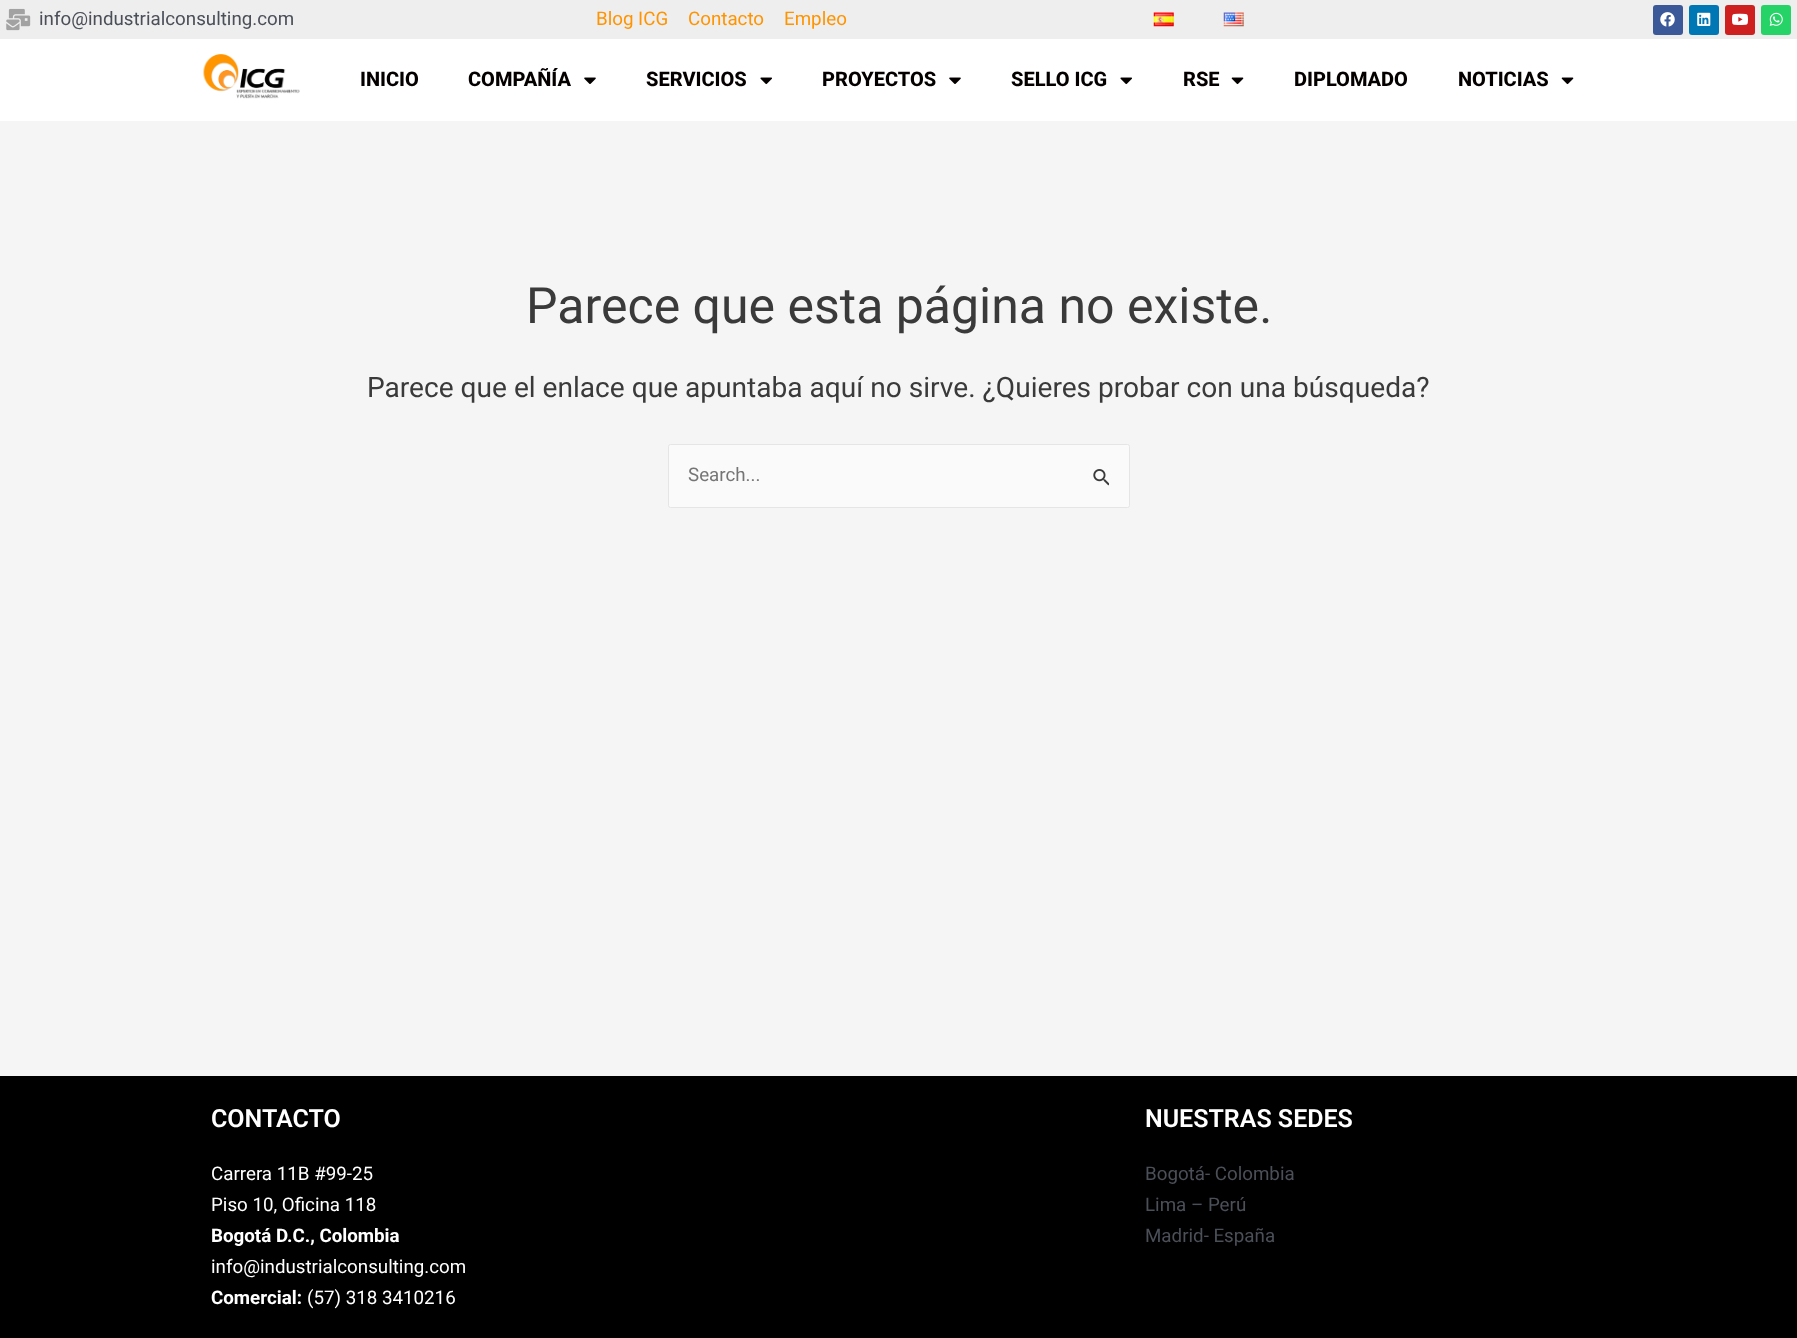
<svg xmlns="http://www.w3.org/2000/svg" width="1797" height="1338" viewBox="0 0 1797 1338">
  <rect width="100%" height="100%" fill="#f5f5f5"/>
  <path d="M0 0h1797v39H0z" fill="#eee"/>
  <image x="6" y="8" width="25" height="23" href="img/1.png"/>
  <image x="1153" y="12" width="21" height="15" href="img/2.png"/>
  <image x="1223" y="12" width="21" height="15" href="img/3.png"/>
  <rect x="1653" y="5" width="30" height="30" rx="3" fill="#3b5998"/>
  <image x="1660" y="12" width="15" height="15" href="img/4.png"/>
  <rect x="1689" y="5" width="30" height="30" rx="3" fill="#0077b5"/>
  <image x="1697" y="12" width="14" height="14" href="img/5.png"/>
  <rect x="1725" y="5" width="30" height="30" rx="3" fill="#cd201f"/>
  <image x="1732" y="13" width="16" height="12" href="img/6.png"/>
  <rect x="1761" y="5" width="30" height="30" rx="3" fill="#25d366"/>
  <image x="1769" y="12" width="14" height="14" href="img/7.png"/>
  <path d="M0 39h1797v82H0z" fill="#fff"/>
  <image x="203" y="54" width="97" height="45" href="img/8.png"/>
  <image x="584" y="77" width="12" height="7" href="img/9.png"/>
  <image x="760" y="77" width="12" height="8" href="img/10.png"/>
  <image x="949" y="77" width="12" height="7" href="img/9.png"/>
  <image x="1120" y="77" width="12" height="8" href="img/10.png"/>
  <image x="1231" y="77" width="13" height="8" href="img/11.png"/>
  <image x="1561" y="77" width="13" height="8" href="img/11.png"/>
  <rect x="668.5" y="444.5" width="461" height="63" rx="2" fill="#fafafa" stroke="#e5e5e5"/>
  <image x="1093" y="469" width="16" height="17" href="img/12.png"/>
  <path d="M0 1076h1797v262H0z" fill="#000"/>
  <text x="39" y="25" font-family="Roboto" font-size="18.75" fill="#4b4f58">info@industrialconsulting.com</text>
  <g font-family="Roboto" font-size="18.75" fill="#ff9400">
    <text x="596" y="25">Blog ICG</text>
    <text x="688" y="25">Contacto</text>
    <text x="784" y="25">Empleo</text>
  </g>
  <g font-family="Roboto" font-size="20" font-weight="800" fill="#050000">
    <text x="360" y="86">INICIO</text>
    <text x="468" y="86">COMPAÑÍA</text>
    <text x="646" y="86">SERVICIOS</text>
    <text x="822" y="86">PROYECTOS</text>
    <text x="1011" y="86">SELLO ICG</text>
    <text x="1183" y="86">RSE</text>
    <text x="1294" y="86">DIPLOMADO</text>
    <text x="1458" y="86">NOTICIAS</text>
  </g>
  <text x="526" y="323" font-family="Roboto" font-size="50" fill="#3a3a3a">Parece que esta página no existe.</text>
  <text x="367" y="397" font-family="Roboto" font-size="28.1" fill="#3a3a3a">Parece que el enlace que apuntaba aquí no sirve. ¿Quieres probar con una búsqueda?</text>
  <text x="688" y="481" font-family="Roboto" font-size="18.75" fill="#757575">Search...</text>
  <text x="211" y="1127" font-family="Roboto" font-size="25" font-weight="600" fill="#fff">CONTACTO</text>
  <g font-family="Roboto" font-size="18.75" fill="#fff">
    <text x="211" y="1180">Carrera 11B #99-25</text>
    <text x="211" y="1211">Piso 10, Oficina 118</text>
  </g>
  <text x="211" y="1242" font-family="Roboto" font-size="18.75" font-weight="bold" fill="#fff">Bogotá D.C., Colombia</text>
  <text x="211" y="1273" font-family="Roboto" font-size="18.75" fill="#fff">info@industrialconsulting.com</text>
  <text x="211" y="1304" font-family="Roboto" font-size="18.75" font-weight="bold" fill="#fff">Comercial:</text>
  <text x="307" y="1304" font-family="Roboto" font-size="18.75" fill="#fff">(57) 318 3410216</text>
  <text x="1145" y="1127" font-family="Roboto" font-size="25" font-weight="600" fill="#fff">NUESTRAS SEDES</text>
  <g font-family="Roboto" font-size="18.75" fill="#4b4f58">
    <text x="1145" y="1180">Bogotá- Colombia</text>
    <text x="1145" y="1211">Lima – Perú</text>
    <text x="1145" y="1242">Madrid- España</text>
  </g>
</svg>
